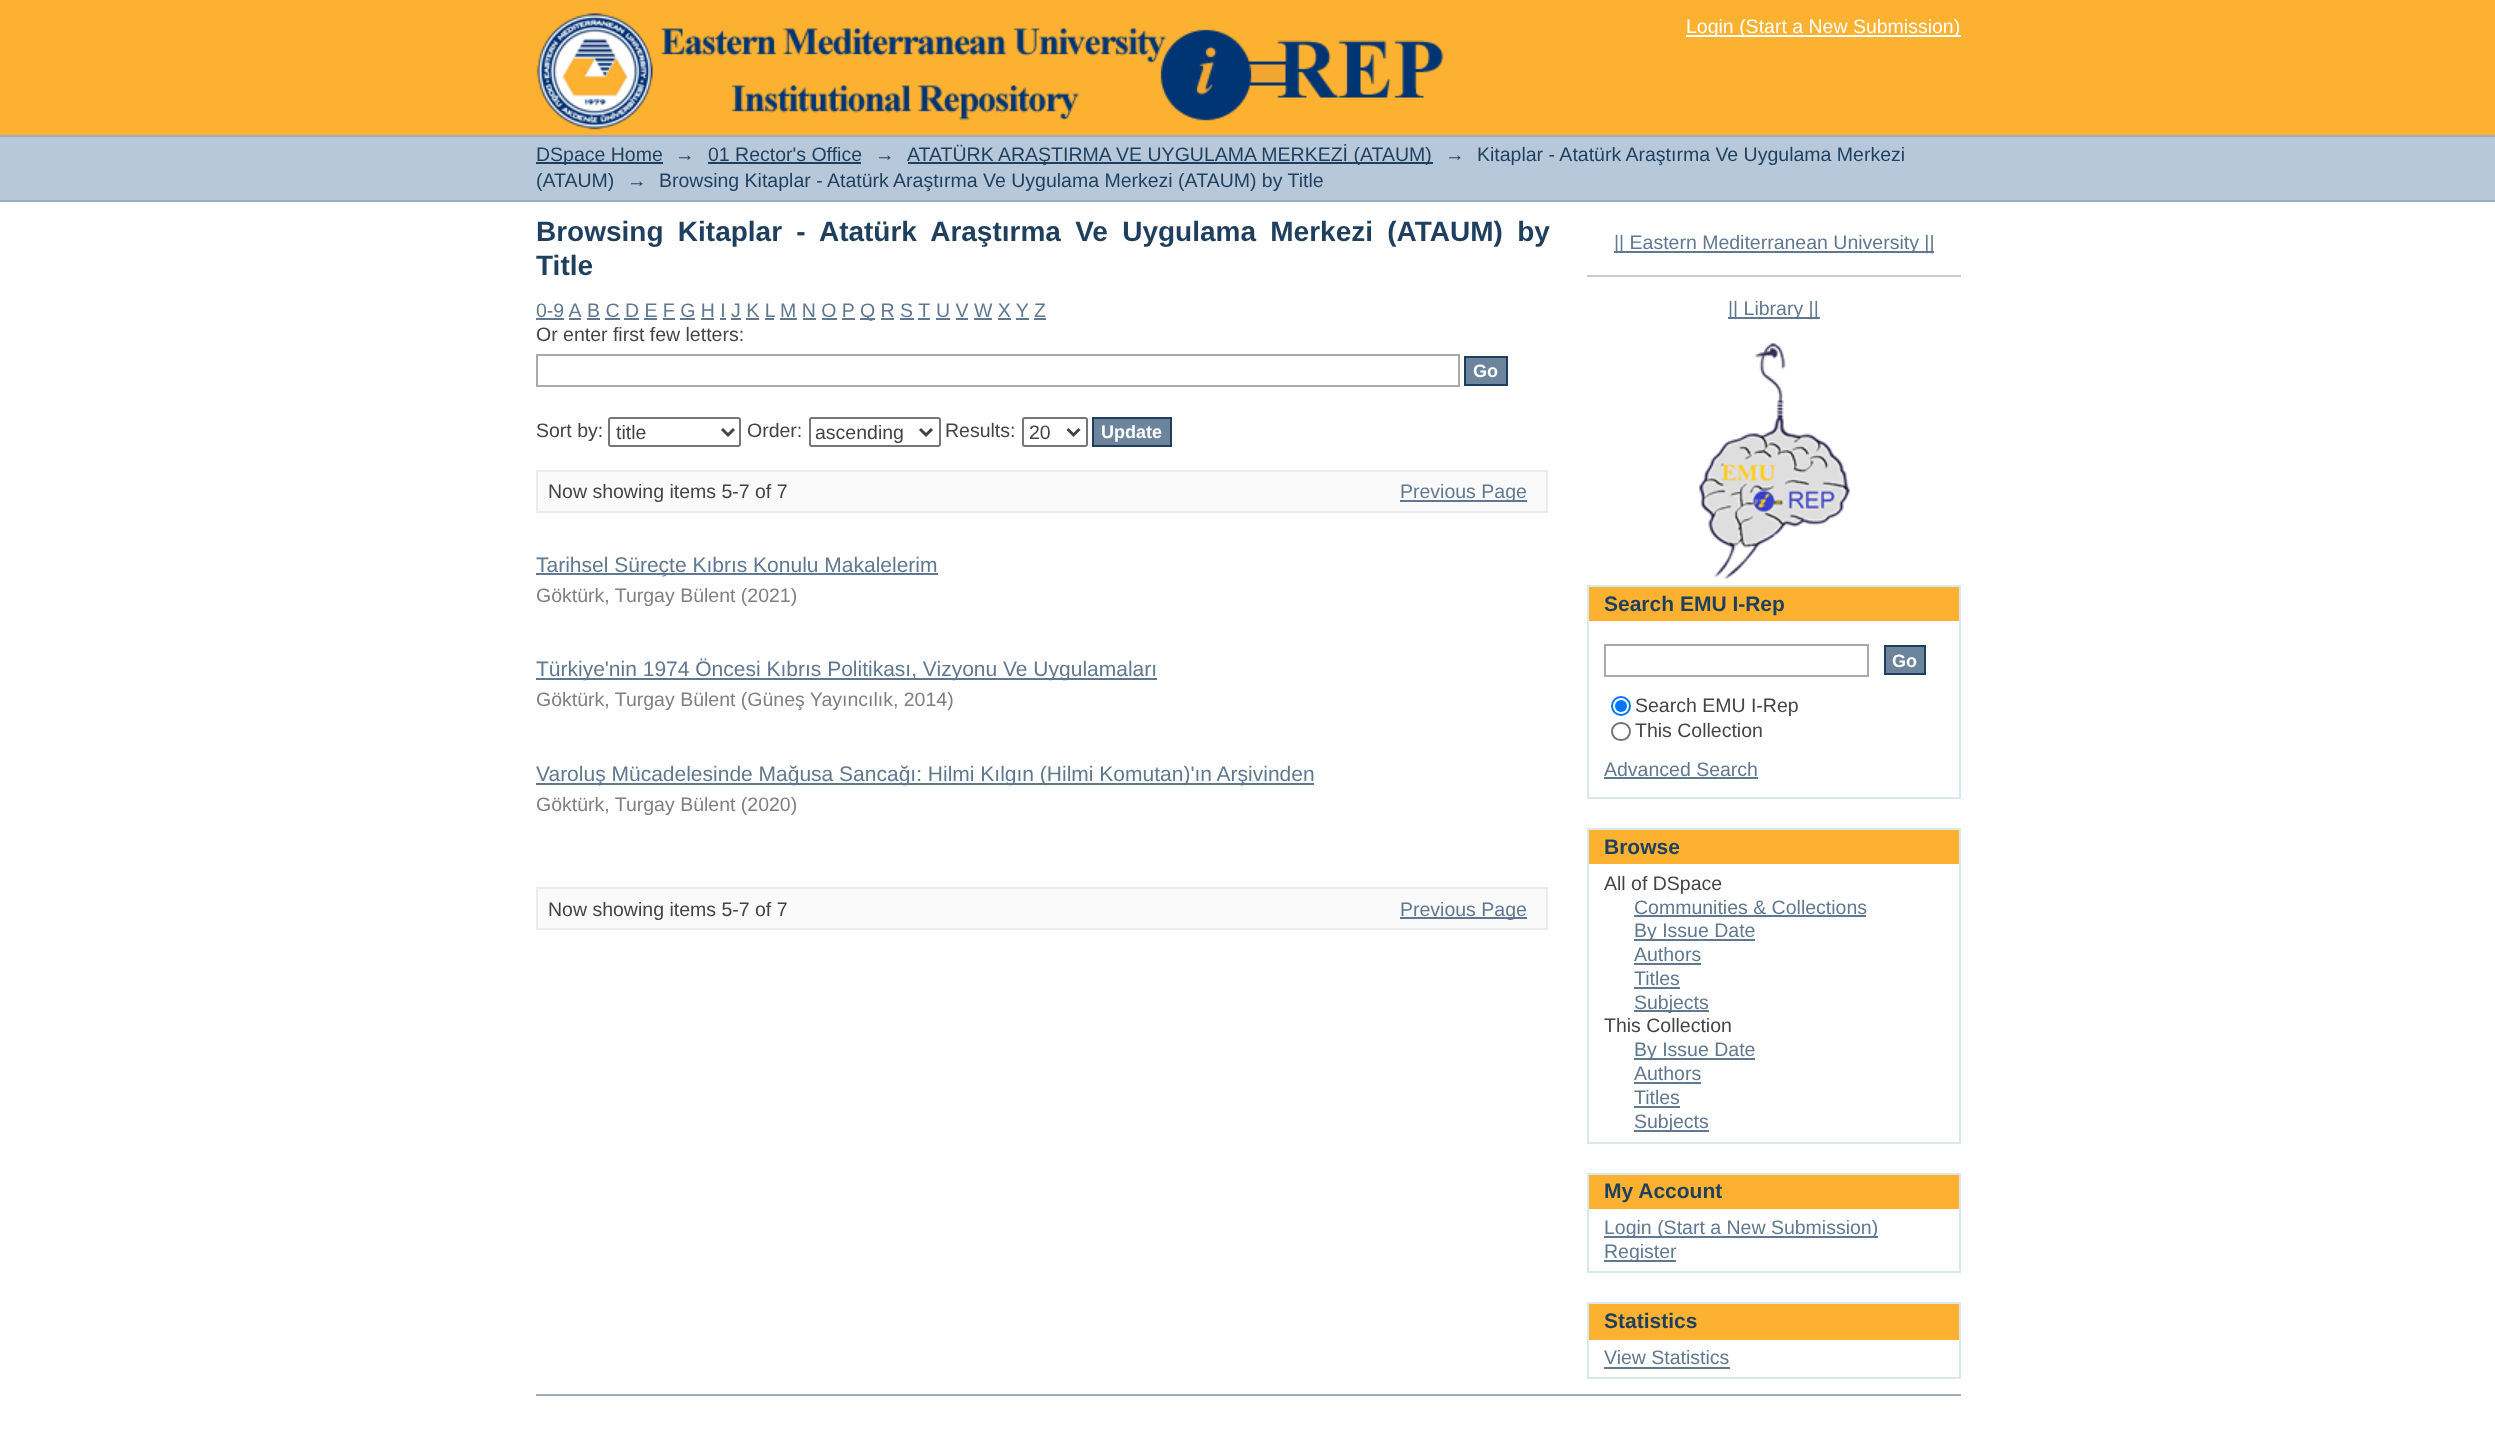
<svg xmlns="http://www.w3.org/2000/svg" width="2495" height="1432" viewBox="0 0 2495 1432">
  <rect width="100%" height="100%" fill="#fff"/>
  <path d="M0 0h2495v135H0z" fill="#fcb131"/>
  <image x="536" y="13" width="908" height="117" href="img/1.png"/>
  <path d="M1686 35h275v2H1686z" fill="#fff"/>
  <path d="M0 137h2495v63H0z" fill="#b6c8d9"/>
  <path d="M0 135h2495v2H0z" fill="#9cacba"/>
  <path d="M0 200h2495v2H0z" fill="#9cacba"/>
  <path d="M536 162h127v2H536z" fill="#1f3f5e"/>
  <path d="M708 162h153v2H708z" fill="#1f3f5e"/>
  <path d="M908 162h525v2H908z" fill="#1f3f5e"/>
  <path d="M536 318h28v2H536z" fill="#607890"/>
  <path d="M587 318h13v2H587z" fill="#607890"/>
  <path d="M780 318h17v2H780z" fill="#607890"/>
  <path d="M860 318h15v2H860z" fill="#607890"/>
  <path d="M936 318h14v2H936z" fill="#607890"/>
  <path d="M1034 318h12v2H1034z" fill="#607890"/>
  <path d="M569 318h12v2H569z" fill="#607890"/>
  <path d="M605 318h15v2H605z" fill="#607890"/>
  <path d="M624 318h15v2H624z" fill="#607890"/>
  <path d="M644 318h13v2H644z" fill="#607890"/>
  <path d="M663 318h12v2H663z" fill="#607890"/>
  <path d="M680 318h15v2H680z" fill="#607890"/>
  <path d="M701 318h13v2H701z" fill="#607890"/>
  <path d="M720 318h6v2H720z" fill="#607890"/>
  <path d="M731 318h10v2H731z" fill="#607890"/>
  <path d="M746 318h13v2H746z" fill="#607890"/>
  <path d="M765 318h9v2H765z" fill="#607890"/>
  <path d="M803 318h13v2H803z" fill="#607890"/>
  <path d="M822 318h15v2H822z" fill="#607890"/>
  <path d="M842 318h13v2H842z" fill="#607890"/>
  <path d="M881 318h13v2H881z" fill="#607890"/>
  <path d="M900 318h14v2H900z" fill="#607890"/>
  <path d="M918 318h12v2H918z" fill="#607890"/>
  <path d="M956 318h12v2H956z" fill="#607890"/>
  <path d="M974 318h18v2H974z" fill="#607890"/>
  <path d="M998 318h13v2H998z" fill="#607890"/>
  <path d="M1016 318h13v2H1016z" fill="#607890"/>
  <path d="M537 355h922v31H537z" fill="none" stroke="#aaa" stroke-width="2"/>
  <path d="M1465 357h42v28H1465z" fill="#6d859c" stroke="#1f3f5e" stroke-width="2"/>
  <rect x="609" y="418" width="131" height="28" rx="2" fill="none" stroke="#767676" stroke-width="2"/>
  <path d="M722 429L728 435L734 429" fill="none" stroke="#444" stroke-width="3"/>
  <rect x="810" y="418" width="130" height="28" rx="2" fill="none" stroke="#767676" stroke-width="2"/>
  <path d="M920 429L926 435L932 429" fill="none" stroke="#444" stroke-width="3"/>
  <rect x="1023" y="418" width="64" height="28" rx="2" fill="none" stroke="#767676" stroke-width="2"/>
  <path d="M1067.5 429L1073.5 435L1079.5 429" fill="none" stroke="#444" stroke-width="3"/>
  <path d="M1093 418h78v28H1093z" fill="#6d859c" stroke="#1f3f5e" stroke-width="2"/>
  <path d="M537 471h1010v41H537z" fill="#fafafa" stroke="#ebebeb" stroke-width="2"/>
  <path d="M1400 500h127v2H1400z" fill="#607890"/>
  <path d="M536 573h402v2H536z" fill="#607890"/>
  <path d="M536 678h621v2H536z" fill="#607890"/>
  <path d="M536 783h778v2H536z" fill="#607890"/>
  <path d="M537 888h1010v41H537z" fill="#fafafa" stroke="#ebebeb" stroke-width="2"/>
  <path d="M1400 917h127v2H1400z" fill="#607890"/>
  <path d="M1614 251h320v2H1614z" fill="#607890"/>
  <path d="M1587 275h374v2H1587z" fill="#ccc"/>
  <path d="M1728 317h92v2H1728z" fill="#607890"/>
  <image x="1699" y="343" width="151" height="236" href="img/2.png"/>
  <path d="M1589 587h370v34H1589z" fill="#fcb131"/>
  <path d="M1587 585h374v2H1587z" fill="#d8e8eb"/>
  <path d="M1959 585h2v213H1959z" fill="#d8e8eb"/>
  <path d="M1587 585h2v36H1587z" fill="#d8e8eb"/>
  <path d="M1587 797h374v2H1587z" fill="#d8e8eb"/>
  <path d="M1587 621h2v177H1587z" fill="#d8e8eb"/>
  <path d="M1605 645h263v31H1605z" fill="none" stroke="#aaa" stroke-width="2"/>
  <path d="M1885 646h40v28H1885z" fill="#6d859c" stroke="#1f3f5e" stroke-width="2"/>
  <circle cx="1621" cy="706" r="9" fill="none" stroke="#0075ff" stroke-width="2"/>
  <circle cx="1621" cy="706" r="6" fill="#0075ff"/>
  <rect x="1612" y="723" width="18" height="17" rx="8.5" fill="none" stroke="#767676" stroke-width="2"/>
  <path d="M1604 777h154v2H1604z" fill="#607890"/>
  <path d="M1589 830h370v34H1589z" fill="#fcb131"/>
  <path d="M1587 828h374v2H1587z" fill="#d8e8eb"/>
  <path d="M1959 828h2v315H1959z" fill="#d8e8eb"/>
  <path d="M1587 828h2v36H1587z" fill="#d8e8eb"/>
  <path d="M1587 1142h374v2H1587z" fill="#d8e8eb"/>
  <path d="M1587 864h2v279H1587z" fill="#d8e8eb"/>
  <path d="M1634 915h232v2H1634z" fill="#607890"/>
  <path d="M1634 939h121v2H1634z" fill="#607890"/>
  <path d="M1634 963h67v2H1634z" fill="#607890"/>
  <path d="M1634 987h46v2H1634z" fill="#607890"/>
  <path d="M1634 1010h75v2H1634z" fill="#607890"/>
  <path d="M1634 1058h121v2H1634z" fill="#607890"/>
  <path d="M1634 1082h67v2H1634z" fill="#607890"/>
  <path d="M1634 1106h46v2H1634z" fill="#607890"/>
  <path d="M1634 1130h75v2H1634z" fill="#607890"/>
  <path d="M1589 1175h370v34H1589z" fill="#fcb131"/>
  <path d="M1587 1173h374v2H1587z" fill="#d8e8eb"/>
  <path d="M1959 1173h2v99H1959z" fill="#d8e8eb"/>
  <path d="M1587 1173h2v36H1587z" fill="#d8e8eb"/>
  <path d="M1587 1271h374v2H1587z" fill="#d8e8eb"/>
  <path d="M1587 1209h2v63H1587z" fill="#d8e8eb"/>
  <path d="M1604 1236h274v2H1604z" fill="#607890"/>
  <path d="M1604 1260h72v2H1604z" fill="#607890"/>
  <path d="M1589 1304h370v36H1589z" fill="#fcb131"/>
  <path d="M1587 1302h374v2H1587z" fill="#d8e8eb"/>
  <path d="M1959 1302h2v77H1959z" fill="#d8e8eb"/>
  <path d="M1587 1302h2v38H1587z" fill="#d8e8eb"/>
  <path d="M1587 1377h374v2H1587z" fill="#d8e8eb"/>
  <path d="M1587 1340h2v39H1587z" fill="#d8e8eb"/>
  <path d="M1604 1367h126v2H1604z" fill="#607890"/>
  <path d="M536 1394h1425v2H536z" fill="#9cacba"/>
  <text x="1686" y="33" font-family="Liberation Sans" font-size="19.5" fill="#fff">Login (Start a New Submission)</text>
  <g font-family="Liberation Sans" font-size="19.5" fill="#1f3f5e">
    <text x="536" y="161">DSpace Home</text>
    <text x="675" y="161">→</text>
    <text x="708" y="161">01 Rector's Office</text>
    <text x="875" y="161">→</text>
    <text x="907" y="161">ATATÜRK ARAŞTIRMA VE UYGULAMA MERKEZİ (ATAUM)</text>
    <text x="1445" y="161">→</text>
    <text x="1477" y="161">Kitaplar - Atatürk Araştırma Ve Uygulama Merkezi</text>
    <text x="536" y="187">(ATAUM)</text>
    <text x="627" y="187">→</text>
    <text x="659" y="187">Browsing Kitaplar - Atatürk Araştırma Ve Uygulama Merkezi (ATAUM) by Title</text>
  </g>
  <g font-family="Liberation Sans" font-size="28" font-weight="bold" fill="#1f3f5e">
    <text x="536" y="241" word-spacing="6.5">Browsing Kitaplar - Atatürk Araştırma Ve Uygulama Merkezi (ATAUM) by</text>
    <text x="536" y="275">Title</text>
  </g>
  <g font-family="Liberation Sans" font-size="19.5" fill="#607890">
    <text x="536" y="317">0-9 A</text>
    <text x="587" y="317">B C D E F G H I J K L</text>
    <text x="780" y="317">M N O P</text>
    <text x="860" y="317">Q R S T</text>
    <text x="936" y="317">U V W X Y</text>
    <text x="1034" y="317">Z</text>
  </g>
  <text x="536" y="341" font-family="Liberation Sans" font-size="19.5" fill="#444">Or enter first few letters:</text>
  <text x="1473" y="377" font-family="Liberation Sans" font-size="18" font-weight="bold" fill="#fff">Go</text>
  <g font-family="Liberation Sans" font-size="19.5" fill="#444">
    <text x="536" y="437">Sort by:</text>
    <text x="616" y="439">title</text>
    <text x="747" y="437">Order:</text>
    <text x="815" y="439">ascending</text>
    <text x="945" y="437">Results:</text>
    <text x="1029" y="439">20</text>
  </g>
  <text x="1101" y="438" font-family="Liberation Sans" font-size="18" font-weight="bold" fill="#fff">Update</text>
  <text x="548" y="498" font-family="Liberation Sans" font-size="19.5" fill="#444">Now showing items 5-7 of 7</text>
  <text x="1400" y="498" font-family="Liberation Sans" font-size="19.5" fill="#607890">Previous Page</text>
  <text x="536" y="572" font-family="Liberation Sans" font-size="21" fill="#607890">Tarihsel Süreçte Kıbrıs Konulu Makalelerim</text>
  <text x="536" y="602" font-family="Liberation Sans" font-size="19.5" fill="#808080">Göktürk, Turgay Bülent (2021)</text>
  <text x="536" y="676" font-family="Liberation Sans" font-size="21" fill="#607890">Türkiye'nin 1974 Öncesi Kıbrıs Politikası, Vizyonu Ve Uygulamaları</text>
  <text x="536" y="706" font-family="Liberation Sans" font-size="19.5" fill="#808080">Göktürk, Turgay Bülent (Güneş Yayıncılık, 2014)</text>
  <text x="536" y="781" font-family="Liberation Sans" font-size="21" fill="#607890">Varoluş Mücadelesinde Mağusa Sancağı: Hilmi Kılgın (Hilmi Komutan)'ın Arşivinden</text>
  <text x="536" y="811" font-family="Liberation Sans" font-size="19.5" fill="#808080">Göktürk, Turgay Bülent (2020)</text>
  <text x="548" y="916" font-family="Liberation Sans" font-size="19.5" fill="#444">Now showing items 5-7 of 7</text>
  <g font-family="Liberation Sans" font-size="19.5" fill="#607890">
    <text x="1400" y="916">Previous Page</text>
    <text x="1614" y="249">|| Eastern Mediterranean University ||</text>
    <text x="1728" y="315">|| Library ||</text>
  </g>
  <text x="1604" y="611" font-family="Liberation Sans" font-size="21" font-weight="bold" fill="#1f3f5e">Search EMU I-Rep</text>
  <text x="1892" y="667" font-family="Liberation Sans" font-size="18" font-weight="bold" fill="#fff">Go</text>
  <g font-family="Liberation Sans" font-size="19.5" fill="#444">
    <text x="1635" y="712">Search EMU I-Rep</text>
    <text x="1635" y="737">This Collection</text>
  </g>
  <text x="1604" y="776" font-family="Liberation Sans" font-size="19.5" fill="#607890">Advanced Search</text>
  <text x="1604" y="854" font-family="Liberation Sans" font-size="21" font-weight="bold" fill="#1f3f5e">Browse</text>
  <text x="1604" y="890" font-family="Liberation Sans" font-size="19.5" fill="#444">All of DSpace</text>
  <g font-family="Liberation Sans" font-size="19.5" fill="#607890">
    <text x="1634" y="914">Communities &amp; Collections</text>
    <text x="1634" y="937">By Issue Date</text>
    <text x="1634" y="961">Authors</text>
    <text x="1634" y="985">Titles</text>
    <text x="1634" y="1009">Subjects</text>
  </g>
  <text x="1604" y="1032" font-family="Liberation Sans" font-size="19.5" fill="#444">This Collection</text>
  <g font-family="Liberation Sans" font-size="19.5" fill="#607890">
    <text x="1634" y="1056">By Issue Date</text>
    <text x="1634" y="1080">Authors</text>
    <text x="1634" y="1104">Titles</text>
    <text x="1634" y="1128">Subjects</text>
  </g>
  <text x="1604" y="1198" font-family="Liberation Sans" font-size="21" font-weight="bold" fill="#1f3f5e">My Account</text>
  <g font-family="Liberation Sans" font-size="19.5" fill="#607890">
    <text x="1604" y="1234">Login (Start a New Submission)</text>
    <text x="1604" y="1258">Register</text>
  </g>
  <text x="1604" y="1328" font-family="Liberation Sans" font-size="21" font-weight="bold" fill="#1f3f5e">Statistics</text>
  <text x="1604" y="1364" font-family="Liberation Sans" font-size="19.5" fill="#607890">View Statistics</text>
</svg>
